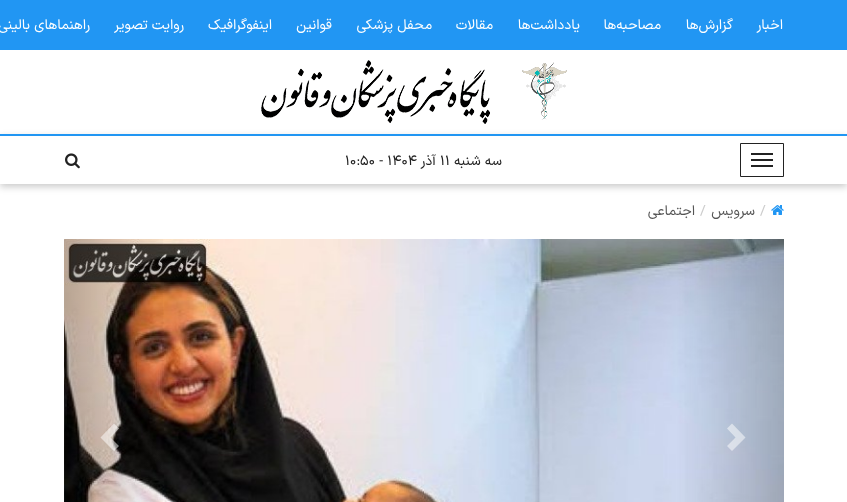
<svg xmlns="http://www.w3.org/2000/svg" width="847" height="502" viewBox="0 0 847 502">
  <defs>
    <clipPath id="clip1"><path d="M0 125H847V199H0ZM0 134H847V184H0Z" clip-rule="evenodd"/></clipPath>
    <linearGradient id="g1" gradientUnits="userSpaceOnUse" x1="172" y1="431" x2="64" y2="431"><stop offset="0" stop-color="#000" stop-opacity="0"/><stop offset="1" stop-color="#000" stop-opacity="0.25"/></linearGradient>
  </defs>
  <rect width="100%" height="100%" fill="#fff"/>
  <path d="M0 0h847v50H0z" fill="#2196f3"/>
  <image x="261" y="60" width="306" height="64" href="img/1.png"/>
  <g clip-path="url(#clip1)">
    <path d="M0 137h847v50H0z" fill="#00000033" filter="blur(3.5px)"/>
  </g>
  <path d="M0 134h847v2H0z" fill="#2196f3"/>
  <path d="M740.5 143.5h43v33H740.5z" fill="none" stroke="#222"/>
  <path d="M751 153h22v2H751z" fill="#222"/>
  <path d="M751 159h22v2H751z" fill="#222"/>
  <path d="M751 165h22v2H751z" fill="#222"/>
  <image x="65" y="153" width="15" height="16" href="img/2.png"/>
  <image x="771" y="205" width="13" height="10" href="img/3.png"/>
  <image x="64" y="239" width="720" height="263" href="img/4.png"/>
  <path d="M745.5 437.5L732 451L727 446L735.5 437.5L727 428.5L732 423.5Z" fill="#ffffff80"/>
  <path d="M64 239h99v263H64z" fill="url(#g1)"/>
  <path d="M119 428.5L110.5 437.5L119 446L114 451L100.5 437.5L114 423.5Z" fill="#ffffff80"/>
  <g font-family="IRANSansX" font-size="14" direction="rtl" fill="#fff">
    <text x="783" y="29">اخبار</text>
    <text x="733" y="29">گزارش‌ها</text>
    <text x="661" y="29">مصاحبه‌ها</text>
    <text x="580" y="29">یادداشت‌ها</text>
    <text x="493" y="29">مقالات</text>
    <text x="432" y="29">محفل پزشکی</text>
    <text x="332" y="29">قوانین</text>
    <text x="272" y="29">اینفوگرافیک</text>
    <text x="184" y="29">روایت تصویر</text>
    <text x="90" y="29">راهنماهای بالینی</text>
  </g>
  <text x="502" y="165" font-family="IRANSansX" font-size="14" direction="rtl" fill="#222">سه شنبه</text>
  <text x="440" y="165" font-family="IRANSansX" font-size="14" fill="#222">۱۱</text>
  <text x="436" y="165" font-family="IRANSansX" font-size="14" direction="rtl" fill="#222">آذر</text>
  <text x="345" y="165" font-family="IRANSansX" font-size="14" fill="#222">۱۰:۵۰ - ۱۴۰۴</text>
  <text x="760" y="215" font-family="IRANSansX" font-size="14" fill="#ccc">/</text>
  <text x="755" y="215" font-family="IRANSansX" font-size="14" direction="rtl" fill="#555">سرویس</text>
  <text x="700" y="215" font-family="IRANSansX" font-size="14" fill="#ccc">/</text>
  <text x="695" y="215" font-family="IRANSansX" font-size="14" direction="rtl" fill="#555">اجتماعی</text>
</svg>
